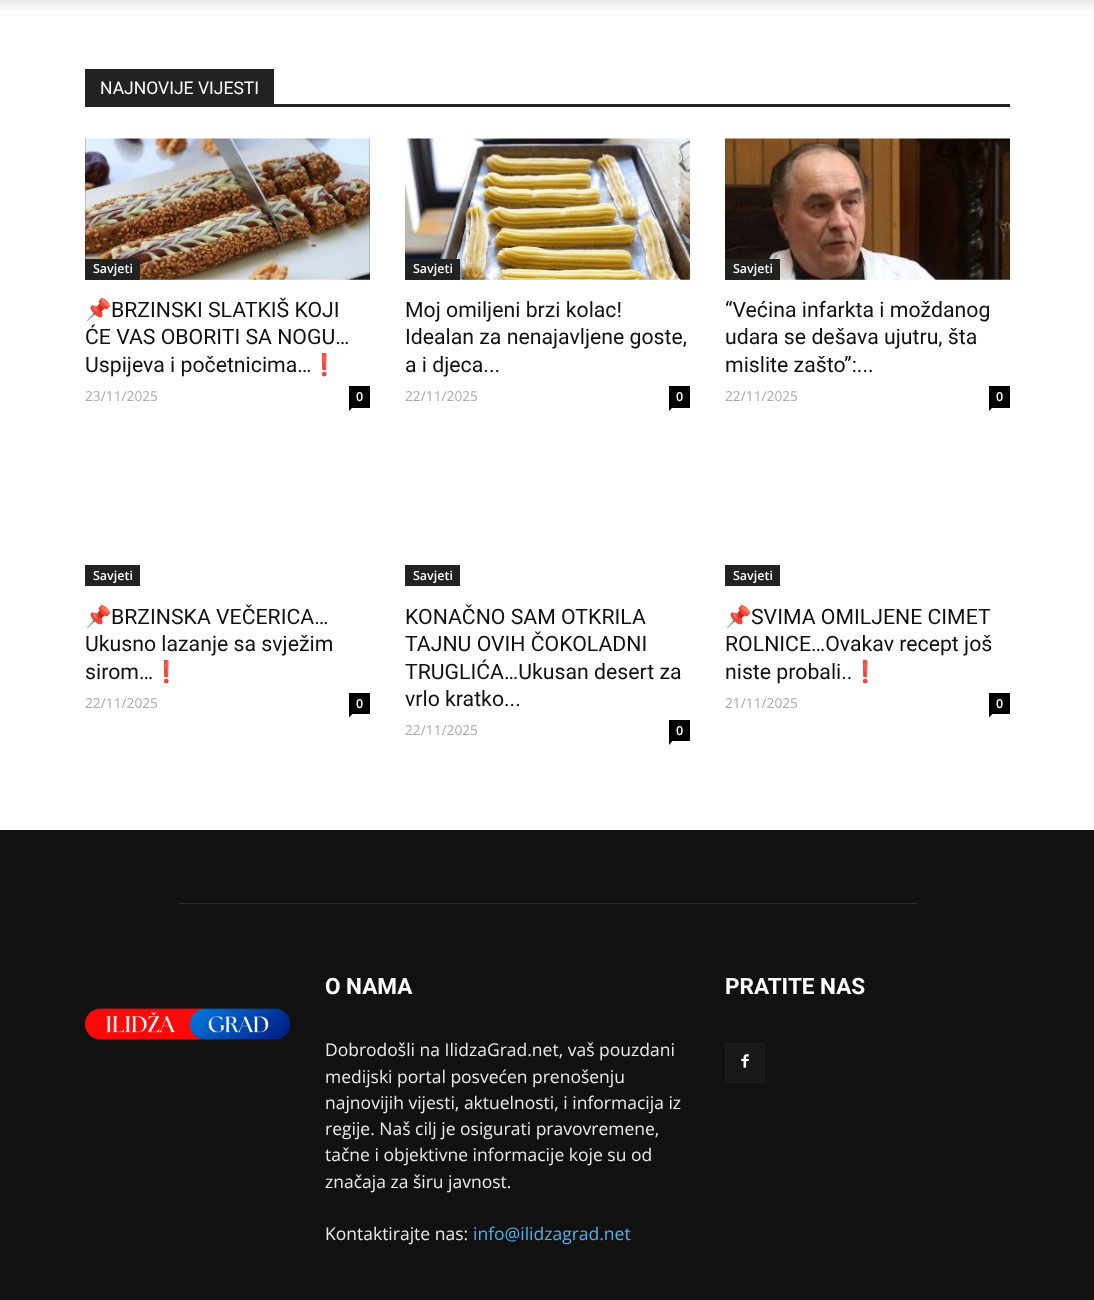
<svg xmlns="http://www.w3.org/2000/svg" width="1094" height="1300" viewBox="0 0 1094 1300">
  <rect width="100%" height="100%" fill="#fff"/>
  <image x="0" y="0" width="1094" height="11" href="img/1.png"/>
  <path d="M85 104h925v3H85z" fill="#222"/>
  <path d="M85 69h189v35H85z" fill="#222"/>
  <image x="85" y="138" width="285" height="142" href="img/2.png"/>
  <path d="M85 259h55v21H85z" fill="#222"/>
  <path d="M349 386h21v22H349z" fill="#000"/>
  <path d="M349 407.5H352.5L349 411Z" fill="#000"/>
  <image x="405" y="138" width="285" height="142" href="img/3.png"/>
  <path d="M405 259h55v21H405z" fill="#222"/>
  <path d="M669 386h21v22H669z" fill="#000"/>
  <path d="M669 407.5H672.5L669 411Z" fill="#000"/>
  <image x="725" y="138" width="285" height="142" href="img/4.png"/>
  <path d="M725 259h55v21H725z" fill="#222"/>
  <path d="M989 386h21v22H989z" fill="#000"/>
  <path d="M989 407.5H992.5L989 411Z" fill="#000"/>
  <path d="M85 565h55v21H85z" fill="#222"/>
  <path d="M349 693h21v21H349z" fill="#000"/>
  <path d="M349 714H352.5L349 717.5Z" fill="#000"/>
  <path d="M405 565h55v21H405z" fill="#222"/>
  <path d="M669 720h21v21H669z" fill="#000"/>
  <path d="M669 741H672.5L669 745Z" fill="#000"/>
  <path d="M725 565h55v21H725z" fill="#222"/>
  <path d="M989 693h21v21H989z" fill="#000"/>
  <path d="M989 714H992.5L989 717.5Z" fill="#000"/>
  <path d="M0 830h1094v470H0z" fill="#111"/>
  <path d="M178 903h740v1H178z" fill="#292929"/>
  <path d="M726 1044h38v38H726z" fill="#181818"/>
  <image x="741" y="1054" width="8" height="14" href="img/5.png"/>
  <path d="M725.5 1043.5h39v39H725.5z" fill="none" stroke="#1f1f1f"/>
  <image x="85" y="1008" width="205" height="32" href="img/6.png"/>
  <text x="100" y="94" font-family="Roboto" font-size="17.5" fill="#fff">NAJNOVIJE VIJESTI</text>
  <text x="93" y="273" font-family="Open Sans" font-size="12.5" font-weight="600" fill="#fff">Savjeti</text>
  <text x="85" y="317" font-family="Noto Color Emoji" font-size="21.25" fill="#111">📌</text>
  <g font-family="Roboto" font-size="21.25" fill="#111">
    <text x="111" y="317">BRZINSKI SLATKIŠ KOJI</text>
    <text x="85" y="344">ĆE VAS OBORITI SA NOGU…</text>
    <text x="85" y="372">Uspijeva i početnicima…</text>
  </g>
  <text x="311" y="372" font-family="Noto Color Emoji" font-size="21.25" fill="#111">❗</text>
  <text x="85" y="401" font-family="Open Sans" font-size="13.75" fill="#aaa">23/11/2025</text>
  <g font-family="Open Sans" font-size="12.5" font-weight="600" fill="#fff">
    <text x="356" y="401">0</text>
    <text x="413" y="273">Savjeti</text>
  </g>
  <g font-family="Roboto" font-size="21.25" fill="#111">
    <text x="405" y="317">Moj omiljeni brzi kolac!</text>
    <text x="405" y="344">Idealan za nenajavljene goste,</text>
    <text x="405" y="372">a i djeca...</text>
  </g>
  <text x="405" y="401" font-family="Open Sans" font-size="13.75" fill="#aaa">22/11/2025</text>
  <g font-family="Open Sans" font-size="12.5" font-weight="600" fill="#fff">
    <text x="676" y="401">0</text>
    <text x="733" y="273">Savjeti</text>
  </g>
  <g font-family="Roboto" font-size="21.25" fill="#111">
    <text x="725" y="317">“Većina infarkta i moždanog</text>
    <text x="725" y="344">udara se dešava ujutru, šta</text>
    <text x="725" y="372">mislite zašto”:...</text>
  </g>
  <text x="725" y="401" font-family="Open Sans" font-size="13.75" fill="#aaa">22/11/2025</text>
  <g font-family="Open Sans" font-size="12.5" font-weight="600" fill="#fff">
    <text x="996" y="401">0</text>
    <text x="93" y="580">Savjeti</text>
  </g>
  <text x="85" y="624" font-family="Noto Color Emoji" font-size="21.25" fill="#111">📌</text>
  <g font-family="Roboto" font-size="21.25" fill="#111">
    <text x="111" y="624">BRZINSKA VEČERICA…</text>
    <text x="85" y="651">Ukusno lazanje sa svježim</text>
    <text x="85" y="679">sirom…</text>
  </g>
  <text x="153" y="679" font-family="Noto Color Emoji" font-size="21.25" fill="#111">❗</text>
  <text x="85" y="708" font-family="Open Sans" font-size="13.75" fill="#aaa">22/11/2025</text>
  <g font-family="Open Sans" font-size="12.5" font-weight="600" fill="#fff">
    <text x="356" y="708">0</text>
    <text x="413" y="580">Savjeti</text>
  </g>
  <g font-family="Roboto" font-size="21.25" fill="#111">
    <text x="405" y="624">KONAČNO SAM OTKRILA</text>
    <text x="405" y="651">TAJNU OVIH ČOKOLADNI</text>
    <text x="405" y="679">TRUGLIĆA…Ukusan desert za</text>
    <text x="405" y="706">vrlo kratko...</text>
  </g>
  <text x="405" y="735" font-family="Open Sans" font-size="13.75" fill="#aaa">22/11/2025</text>
  <g font-family="Open Sans" font-size="12.5" font-weight="600" fill="#fff">
    <text x="676" y="735">0</text>
    <text x="733" y="580">Savjeti</text>
  </g>
  <text x="725" y="624" font-family="Noto Color Emoji" font-size="21.25" fill="#111">📌</text>
  <g font-family="Roboto" font-size="21.25" fill="#111">
    <text x="751" y="624">SVIMA OMILJENE CIMET</text>
    <text x="725" y="651">ROLNICE…Ovakav recept još</text>
    <text x="725" y="679">niste probali..</text>
  </g>
  <text x="852" y="679" font-family="Noto Color Emoji" font-size="21.25" fill="#111">❗</text>
  <text x="725" y="708" font-family="Open Sans" font-size="13.75" fill="#aaa">21/11/2025</text>
  <text x="996" y="708" font-family="Open Sans" font-size="12.5" font-weight="600" fill="#fff">0</text>
  <text x="325" y="994" font-family="Roboto" font-size="22.5" font-weight="bold" fill="#fff">O NAMA</text>
  <g font-family="Open Sans" font-size="17.5" fill="#eaeaea">
    <text x="325" y="1056">Dobrodošli na IlidzaGrad.net, vaš pouzdani</text>
    <text x="325" y="1083">medijski portal posvećen prenošenju</text>
    <text x="325" y="1109">najnovijih vijesti, aktuelnosti, i informacija iz</text>
    <text x="325" y="1135">regije. Naš cilj je osigurati pravovremene,</text>
    <text x="325" y="1161">tačne i objektivne informacije koje su od</text>
    <text x="325" y="1188">značaja za širu javnost.</text>
    <text x="325" y="1240">Kontaktirajte nas:</text>
  </g>
  <text x="473" y="1240" font-family="Open Sans" font-size="17.5" fill="#4db2ec">info@ilidzagrad.net</text>
  <text x="725" y="994" font-family="Roboto" font-size="22.5" font-weight="bold" fill="#fff">PRATITE NAS</text>
</svg>
